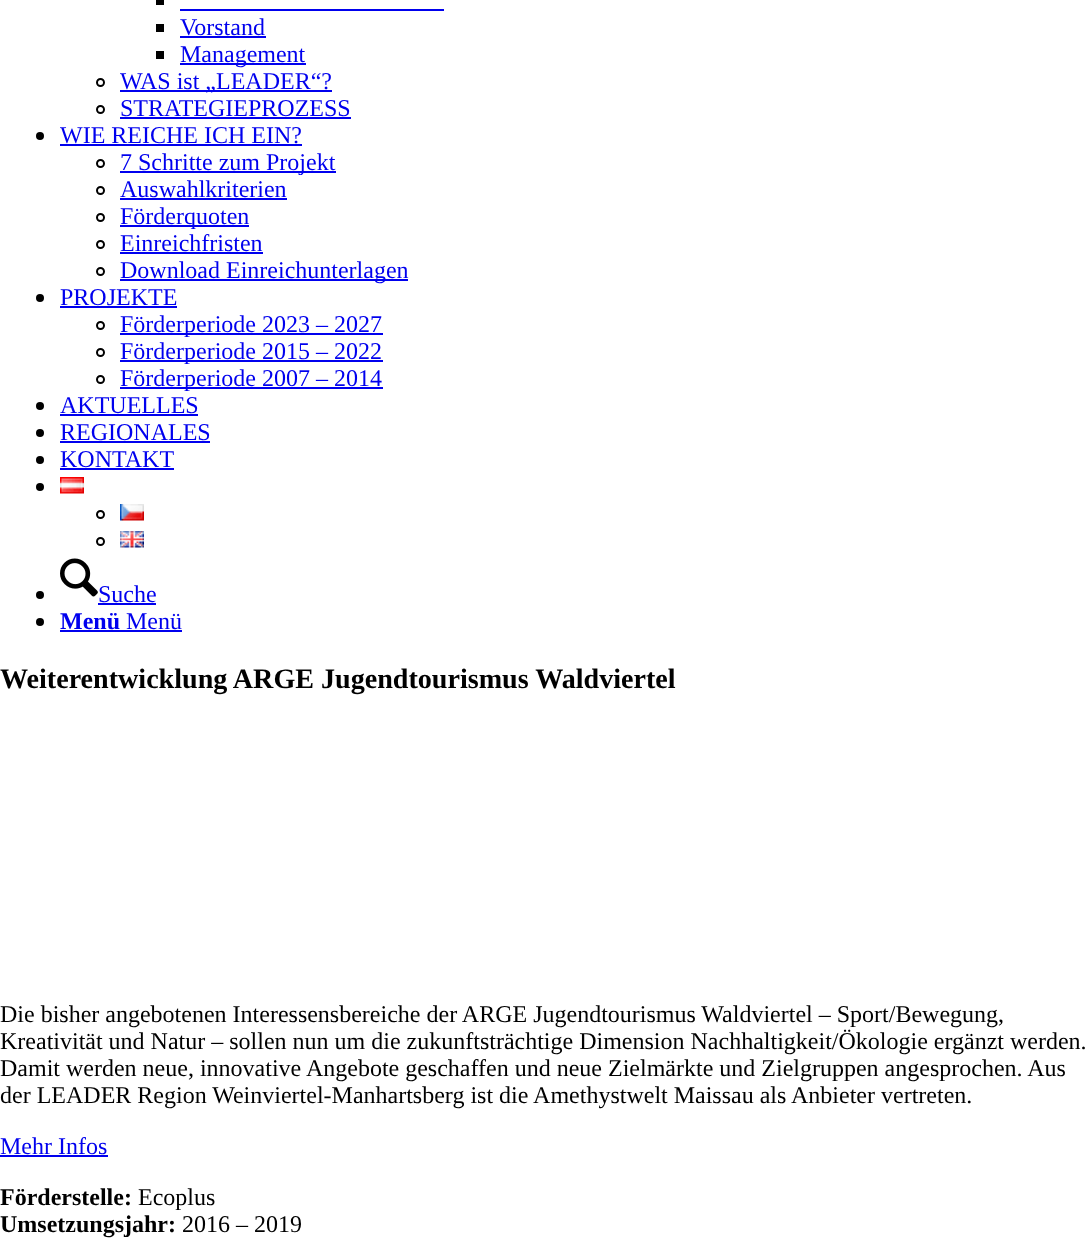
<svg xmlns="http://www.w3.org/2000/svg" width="1088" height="1255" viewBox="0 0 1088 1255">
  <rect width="100%" height="100%" fill="#fff"/>
  <path d="M156 0h8v5H156z" fill="#000"/>
  <path d="M180 9h264v2H180z" fill="#00e"/>
  <path d="M156 24h8v8H156z" fill="#000"/>
  <path d="M180 36h86v2H180z" fill="#00e"/>
  <path d="M156 51h8v8H156z" fill="#000"/>
  <path d="M180 63h126v2H180z" fill="#00e"/>
  <circle cx="100.5" cy="82.5" r="3.5" fill="none" stroke="#000" stroke-width="2"/>
  <path d="M120 90h212v2H120z" fill="#00e"/>
  <circle cx="100.5" cy="109.5" r="3.5" fill="none" stroke="#000" stroke-width="2"/>
  <path d="M120 117h231v2H120z" fill="#00e"/>
  <circle cx="40" cy="136" r="4" fill="#000"/>
  <path d="M60 144h242v2H60z" fill="#00e"/>
  <circle cx="100.5" cy="163.5" r="3.5" fill="none" stroke="#000" stroke-width="2"/>
  <path d="M120 171h216v2H120z" fill="#00e"/>
  <circle cx="100.5" cy="190.5" r="3.5" fill="none" stroke="#000" stroke-width="2"/>
  <path d="M120 198h167v2H120z" fill="#00e"/>
  <circle cx="100.5" cy="217.5" r="3.5" fill="none" stroke="#000" stroke-width="2"/>
  <path d="M120 225h129v2H120z" fill="#00e"/>
  <circle cx="100.5" cy="244.5" r="3.5" fill="none" stroke="#000" stroke-width="2"/>
  <path d="M120 252h143v2H120z" fill="#00e"/>
  <circle cx="100.5" cy="271.5" r="3.5" fill="none" stroke="#000" stroke-width="2"/>
  <path d="M120 279h288v2H120z" fill="#00e"/>
  <circle cx="40" cy="298" r="4" fill="#000"/>
  <path d="M60 306h117v2H60z" fill="#00e"/>
  <circle cx="100.5" cy="325.5" r="3.5" fill="none" stroke="#000" stroke-width="2"/>
  <path d="M120 333h263v2H120z" fill="#00e"/>
  <circle cx="100.5" cy="352.5" r="3.5" fill="none" stroke="#000" stroke-width="2"/>
  <path d="M120 360h263v2H120z" fill="#00e"/>
  <circle cx="100.5" cy="379.5" r="3.5" fill="none" stroke="#000" stroke-width="2"/>
  <path d="M120 387h263v2H120z" fill="#00e"/>
  <circle cx="40" cy="406" r="4" fill="#000"/>
  <path d="M60 414h138v2H60z" fill="#00e"/>
  <circle cx="40" cy="433" r="4" fill="#000"/>
  <path d="M60 441h150v2H60z" fill="#00e"/>
  <circle cx="40" cy="460" r="4" fill="#000"/>
  <path d="M60 468h114v2H60z" fill="#00e"/>
  <circle cx="40" cy="487" r="4" fill="#000"/>
  <image x="60" y="477" width="24" height="17" href="img/1.png"/>
  <circle cx="100.5" cy="514.5" r="3.5" fill="none" stroke="#000" stroke-width="2"/>
  <image x="120" y="504" width="24" height="17" href="img/2.png"/>
  <circle cx="100.5" cy="541.5" r="3.5" fill="none" stroke="#000" stroke-width="2"/>
  <image x="120" y="531" width="24" height="17" href="img/3.png"/>
  <circle cx="40" cy="595" r="4" fill="#000"/>
  <image x="60" y="558" width="38" height="39" href="img/4.png"/>
  <path d="M98 603h58v2H98z" fill="#00e"/>
  <circle cx="40" cy="622" r="4" fill="#000"/>
  <path d="M60 630h122v2H60z" fill="#00e"/>
  <path d="M0 1155h108v2H0z" fill="#00e"/>
  <g font-family="Liberation Serif" font-size="24" fill="#00e">
    <text x="180" y="35">Vorstand</text>
    <text x="180" y="62">Management</text>
    <text x="120" y="89">WAS ist „LEADER“?</text>
    <text x="120" y="116">STRATEGIEPROZESS</text>
    <text x="60" y="143">WIE REICHE ICH EIN?</text>
    <text x="120" y="170">7 Schritte zum Projekt</text>
    <text x="120" y="197">Auswahlkriterien</text>
    <text x="120" y="224">Förderquoten</text>
    <text x="120" y="251">Einreichfristen</text>
    <text x="120" y="278">Download Einreichunterlagen</text>
    <text x="60" y="305">PROJEKTE</text>
    <text x="120" y="332">Förderperiode 2023 – 2027</text>
    <text x="120" y="359">Förderperiode 2015 – 2022</text>
    <text x="120" y="386">Förderperiode 2007 – 2014</text>
    <text x="60" y="413">AKTUELLES</text>
    <text x="60" y="440">REGIONALES</text>
    <text x="60" y="467">KONTAKT</text>
    <text x="98" y="602">Suche</text>
  </g>
  <text x="60" y="629" font-family="Liberation Serif" font-size="24" font-weight="bold" fill="#00e">Menü</text>
  <text x="126" y="629" font-family="Liberation Serif" font-size="24" fill="#00e">Menü</text>
  <text x="0" y="688" font-family="Liberation Serif" font-size="28.1" font-weight="bold" fill="#000">Weiterentwicklung ARGE Jugendtourismus Waldviertel</text>
  <g font-family="Liberation Serif" font-size="24" fill="#000">
    <text x="0" y="1022">Die bisher angebotenen Interessensbereiche der ARGE Jugendtourismus Waldviertel – Sport/Bewegung,</text>
    <text x="0" y="1049">Kreativität und Natur – sollen nun um die zukunftsträchtige Dimension Nachhaltigkeit/Ökologie ergänzt werden.</text>
    <text x="0" y="1076">Damit werden neue, innovative Angebote geschaffen und neue Zielmärkte und Zielgruppen angesprochen. Aus</text>
    <text x="0" y="1103">der LEADER Region Weinviertel-Manhartsberg ist die Amethystwelt Maissau als Anbieter vertreten.</text>
  </g>
  <text x="0" y="1154" font-family="Liberation Serif" font-size="24" fill="#00e">Mehr Infos</text>
  <text x="0" y="1205" font-family="Liberation Serif" font-size="24" font-weight="bold" fill="#000">Förderstelle:</text>
  <text x="138" y="1205" font-family="Liberation Serif" font-size="24" fill="#000">Ecoplus</text>
  <text x="0" y="1232" font-family="Liberation Serif" font-size="24" font-weight="bold" fill="#000">Umsetzungsjahr:</text>
  <text x="182" y="1232" font-family="Liberation Serif" font-size="24" fill="#000">2016 – 2019</text>
</svg>
